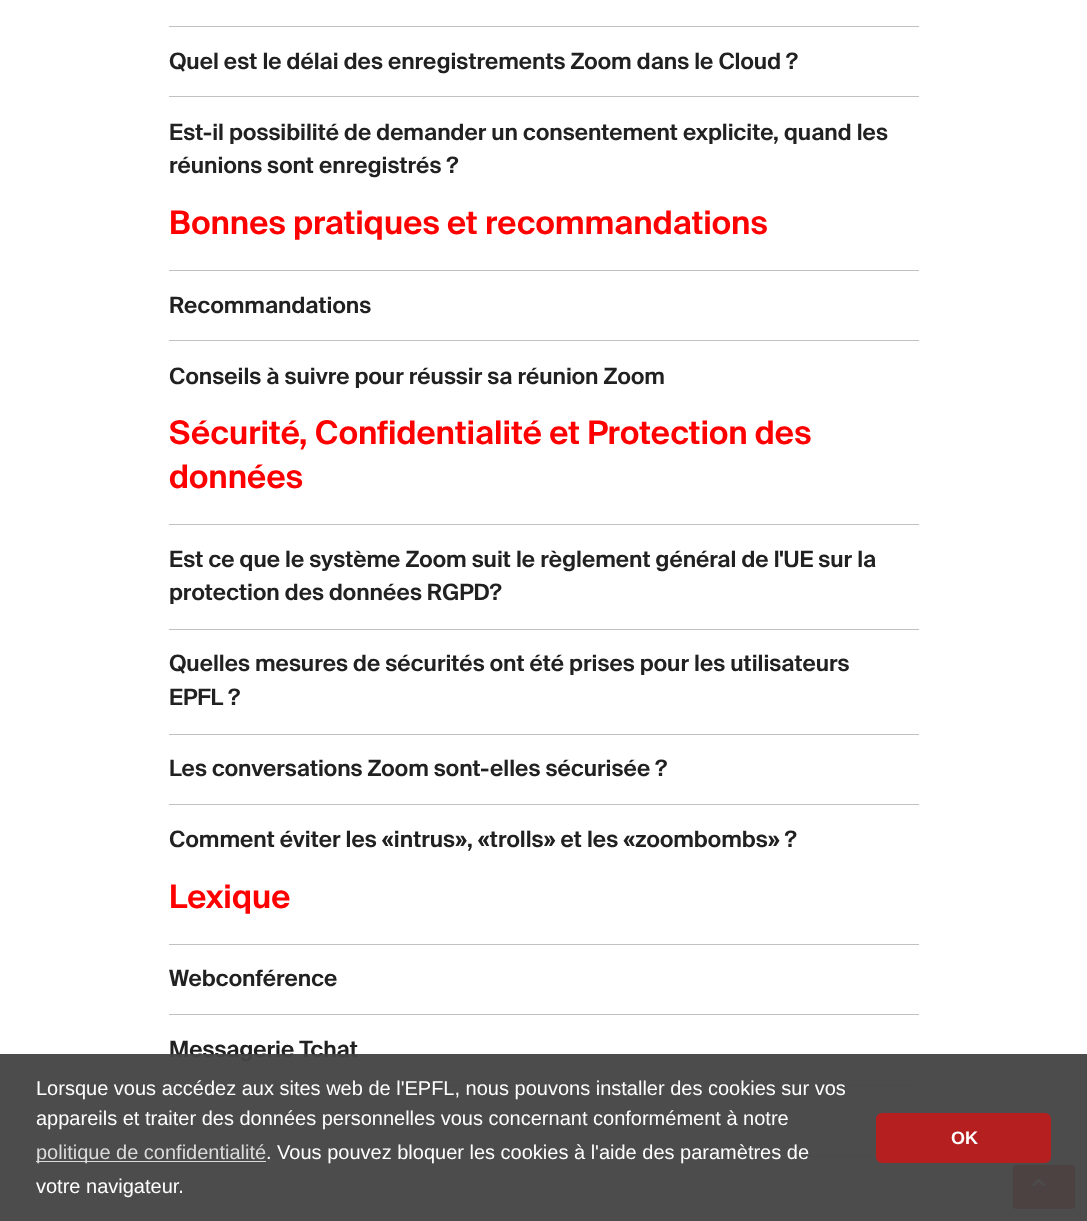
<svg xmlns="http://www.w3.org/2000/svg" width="1087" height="1221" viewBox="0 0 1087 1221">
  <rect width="100%" height="100%" fill="#fff"/>
  <path d="M169 26h750v1H169z" fill="#c1c1c1"/>
  <path d="M169 96h750v1H169z" fill="#c1c1c1"/>
  <path d="M169 270h750v1H169z" fill="#c1c1c1"/>
  <path d="M169 340h750v1H169z" fill="#c1c1c1"/>
  <path d="M169 524h750v1H169z" fill="#c1c1c1"/>
  <path d="M169 629h750v1H169z" fill="#c1c1c1"/>
  <path d="M169 734h750v1H169z" fill="#c1c1c1"/>
  <path d="M169 804h750v1H169z" fill="#c1c1c1"/>
  <path d="M169 944h750v1H169z" fill="#c1c1c1"/>
  <path d="M169 1014h750v1H169z" fill="#c1c1c1"/>
  <path d="M169 1085h750v1H169z" fill="#c1c1c1"/>
  <path d="M169 1156h707v1H169z" fill="#c1c1c1"/>
  <rect x="1013.5" y="1165.5" width="61" height="43" rx="2" fill="#f00" stroke="#f00"/>
  <image x="1032" y="1178" width="14" height="9" href="img/1.png"/>
  <g font-family="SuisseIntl" font-size="22.5" font-weight="600" fill="#212121">
    <text x="169" y="69">Quel est le délai des enregistrements Zoom dans le Cloud ?</text>
    <text x="169" y="140">Est-il possibilité de demander un consentement explicite, quand les</text>
    <text x="169" y="173">réunions sont enregistrés ?</text>
  </g>
  <text x="169" y="234" font-family="SuisseIntl" font-size="32.5" font-weight="600" fill="#f00">Bonnes pratiques et recommandations</text>
  <g font-family="SuisseIntl" font-size="22.5" font-weight="600" fill="#212121">
    <text x="169" y="313">Recommandations</text>
    <text x="169" y="384">Conseils à suivre pour réussir sa réunion Zoom</text>
  </g>
  <g font-family="SuisseIntl" font-size="32.5" font-weight="600" fill="#f00">
    <text x="169" y="444">Sécurité, Confidentialité et Protection des</text>
    <text x="169" y="488">données</text>
  </g>
  <g font-family="SuisseIntl" font-size="22.5" font-weight="600" fill="#212121">
    <text x="169" y="567">Est ce que le système Zoom suit le règlement général de l'UE sur la</text>
    <text x="169" y="600">protection des données RGPD?</text>
    <text x="169" y="671">Quelles mesures de sécurités ont été prises pour les utilisateurs</text>
    <text x="169" y="705">EPFL ?</text>
    <text x="169" y="776">Les conversations Zoom sont-elles sécurisée ?</text>
    <text x="169" y="847">Comment éviter les «intrus», «trolls» et les «zoombombs» ?</text>
  </g>
  <text x="169" y="908" font-family="SuisseIntl" font-size="32.5" font-weight="600" fill="#f00">Lexique</text>
  <g font-family="SuisseIntl" font-size="22.5" font-weight="600" fill="#212121">
    <text x="169" y="986">Webconférence</text>
    <text x="169" y="1057">Messagerie Tchat</text>
  </g>
  <path d="M0 1054h1087v167H0z" fill="#454545f5"/>
  <g font-family="Liberation Sans" font-size="20" fill="#fff">
    <text x="36" y="1095">Lorsque vous accédez aux sites web de l'EPFL, nous pouvons installer des cookies sur vos</text>
    <text x="36" y="1125">appareils et traiter des données personnelles vous concernant conformément à notre</text>
  </g>
  <path d="M36 1161h230v1H36z" fill="#dbdbdb"/>
  <text x="36" y="1159" font-family="Liberation Sans" font-size="20" fill="#dbdbdb">politique de confidentialité</text>
  <g font-family="Liberation Sans" font-size="20" fill="#fff">
    <text x="266" y="1159">. Vous pouvez bloquer les cookies à l'aide des paramètres de</text>
    <text x="36" y="1193">votre navigateur.</text>
  </g>
  <rect x="876" y="1113" width="175" height="50" rx="6" fill="#b51f1f"/>
  <text x="951" y="1144" font-family="Liberation Sans" font-size="18" font-weight="bold" fill="#fff">OK</text>
</svg>
